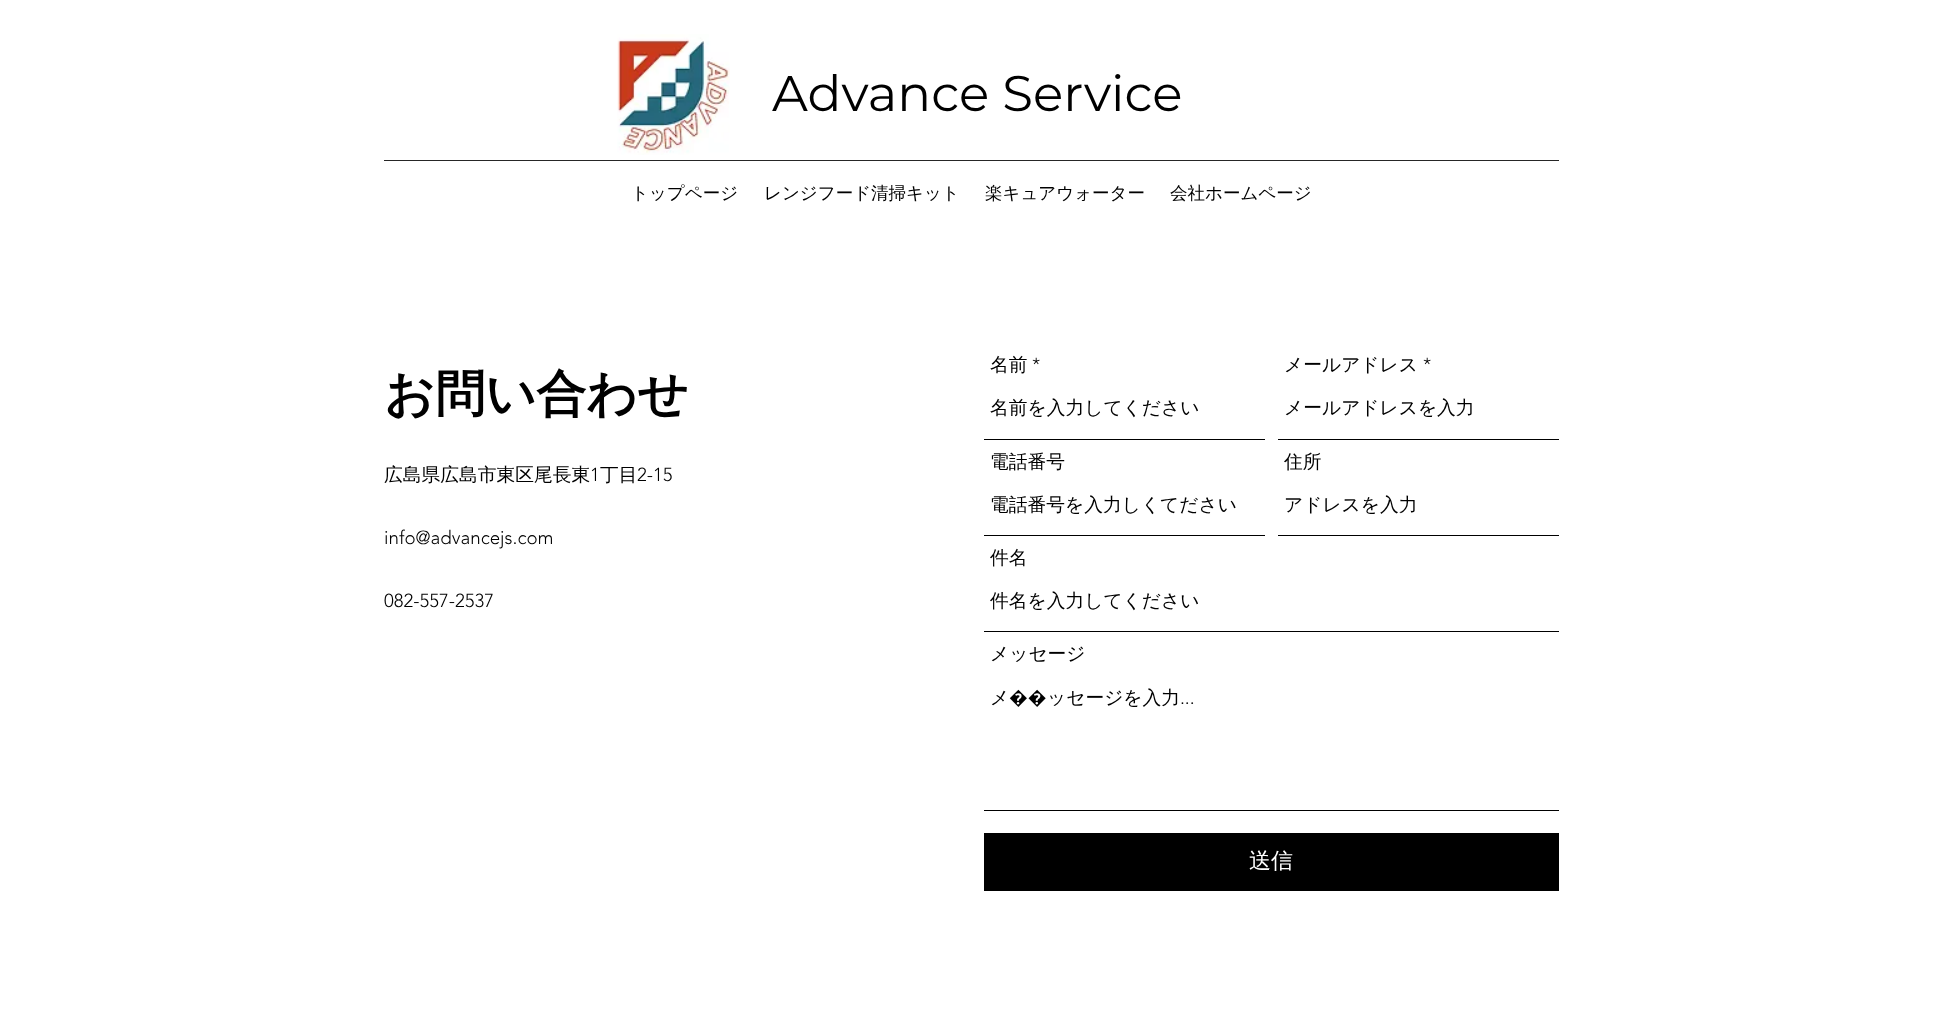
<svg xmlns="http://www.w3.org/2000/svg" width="1942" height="1021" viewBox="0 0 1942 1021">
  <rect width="100%" height="100%" fill="#fff"/>
  <image x="617" y="34" width="113" height="121" href="img/1.png"/>
  <path d="M384 160h1175v1H384z" fill="#262626"/>
  <path d="M984 439h281v1H984z" fill="#000"/>
  <path d="M1278 439h281v1H1278z" fill="#000"/>
  <path d="M984 535h281v1H984z" fill="#000"/>
  <path d="M1278 535h281v1H1278z" fill="#000"/>
  <path d="M984 631h575v1H984z" fill="#000"/>
  <path d="M984 810h575v1H984z" fill="#000"/>
  <path d="M984 833h575v58H984z" fill="#000"/>
  <text x="772" y="111" font-family="Montserrat" font-size="50" fill="#000">Advance Service</text>
  <g font-family="WenQuanYi Zen Hei" font-size="17.5" font-weight="500" fill="#000">
    <text x="631" y="199">トップページ</text>
    <text x="764" y="199">レンジフード清掃キット</text>
    <text x="985" y="199">楽キュアウォーター</text>
    <text x="1170" y="199">会社ホームページ</text>
  </g>
  <text x="384" y="411" font-family="WenQuanYi Zen Hei" font-size="50" font-weight="bold" fill="#000">お問い合わせ</text>
  <text x="990" y="371" font-family="WenQuanYi Zen Hei" font-size="18.75" font-weight="500" fill="#000">名前</text>
  <text x="1032" y="371" font-family="'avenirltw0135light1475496'" font-size="18.75" font-weight="300" fill="#000">*</text>
  <g font-family="WenQuanYi Zen Hei" font-size="18.75" font-weight="500" fill="#000">
    <text x="990" y="414">名前を入力してください</text>
    <text x="1284" y="371">メールアドレス</text>
  </g>
  <text x="1423" y="371" font-family="'avenirltw0135light1475496'" font-size="18.75" font-weight="300" fill="#000">*</text>
  <g font-family="WenQuanYi Zen Hei" font-size="18.75" font-weight="500" fill="#000">
    <text x="1284" y="414">メールアドレスを入力</text>
    <text x="990" y="468">電話番号</text>
    <text x="990" y="511">電話番号を入力しくてださい</text>
    <text x="1284" y="468">住所</text>
    <text x="1284" y="511">アドレスを入力</text>
    <text x="990" y="564">件名</text>
    <text x="990" y="607">件名を入力してください</text>
    <text x="990" y="660">メッセージ</text>
    <text x="990" y="704">メ</text>
  </g>
  <text x="1009" y="704" font-family="Noto Sans" font-size="18.75" fill="#000">��</text>
  <text x="1047" y="704" font-family="WenQuanYi Zen Hei" font-size="18.75" font-weight="500" fill="#000">ッセージを入力</text>
  <text x="1180" y="704" font-family="'avenirltw0135light1475496'" font-size="18.75" font-weight="300" fill="#000">...</text>
  <text x="1249" y="868" font-family="WenQuanYi Zen Hei" font-size="22" font-weight="500" fill="#fff">送信</text>
  <text x="384" y="481" font-family="WenQuanYi Zen Hei" font-size="18.75" font-weight="500" fill="#000">広島県広島市東区尾長東</text>
  <text x="590" y="481" font-family="'avenirltw0135light1475496'" font-size="18.75" font-weight="300" fill="#000">1</text>
  <text x="600" y="481" font-family="WenQuanYi Zen Hei" font-size="18.75" font-weight="500" fill="#000">丁目</text>
  <g font-family="'avenirltw0135light1475496'" font-size="18.75" font-weight="300" fill="#000">
    <text x="637" y="481">2-15</text>
    <text x="384" y="544">info@advancejs.com</text>
    <text x="384" y="607">082-557-2537</text>
  </g>
</svg>
